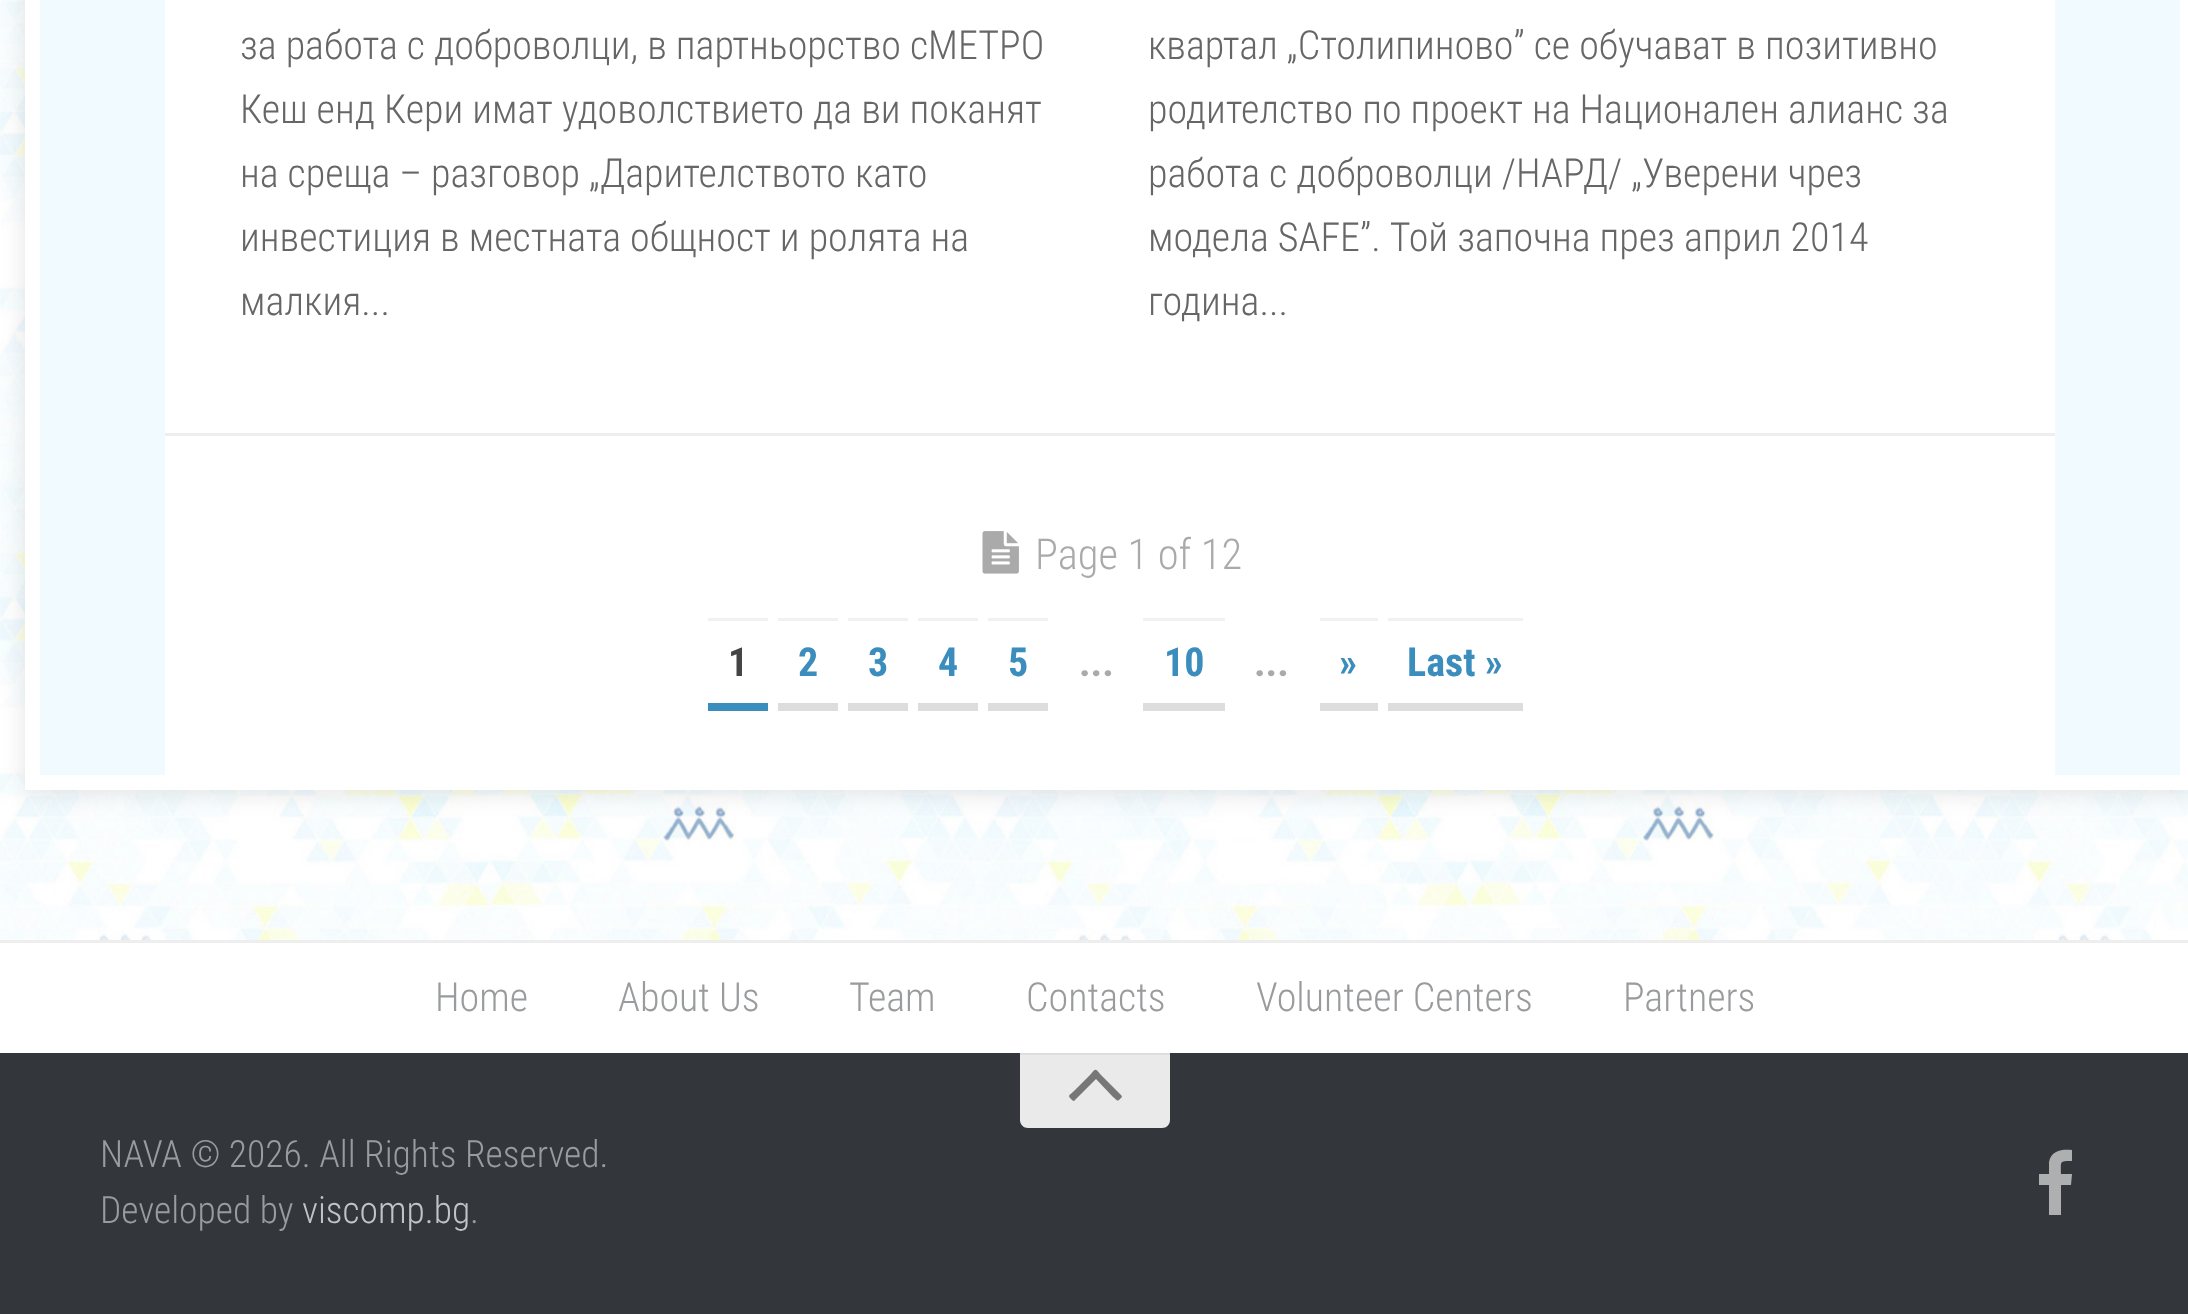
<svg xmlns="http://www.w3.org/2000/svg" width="2188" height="1314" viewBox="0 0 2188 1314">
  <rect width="100%" height="100%" fill="#fff"/>
  <image x="0" y="0" width="2188" height="940" href="img/1.png"/>
  <path d="M25 -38h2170v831H25z" fill="#0000001a" filter="blur(12.5px)"/>
  <path d="M25 0h2163v790H25z" fill="#fff"/>
  <path d="M40 0h2140v775H40z" fill="#f0faff"/>
  <path d="M165 0h1890v775H165z" fill="#fff"/>
  <path d="M165 433h1890v3H165z" fill="#eee"/>
  <image x="982" y="531" width="37" height="43" href="img/2.png"/>
  <path d="M708 618h60v3H708z" fill="#f1f1f1"/>
  <path d="M708 703h60v8H708z" fill="#3b8dbd"/>
  <path d="M778 618h60v3H778z" fill="#f1f1f1"/>
  <path d="M778 703h60v8H778z" fill="#ddd"/>
  <path d="M848 618h60v3H848z" fill="#f1f1f1"/>
  <path d="M848 703h60v8H848z" fill="#ddd"/>
  <path d="M918 618h60v3H918z" fill="#f1f1f1"/>
  <path d="M918 703h60v8H918z" fill="#ddd"/>
  <path d="M988 618h60v3H988z" fill="#f1f1f1"/>
  <path d="M988 703h60v8H988z" fill="#ddd"/>
  <path d="M1143 618h82v3H1143z" fill="#f1f1f1"/>
  <path d="M1143 703h82v8H1143z" fill="#ddd"/>
  <path d="M1320 618h58v3H1320z" fill="#f1f1f1"/>
  <path d="M1320 703h58v8H1320z" fill="#ddd"/>
  <path d="M1388 618h135v3H1388z" fill="#f1f1f1"/>
  <path d="M1388 703h135v8H1388z" fill="#ddd"/>
  <path d="M0 940h2188v3H0z" fill="#eee"/>
  <path d="M0 1053h2188v261H0z" fill="#33363b"/>
  <path d="M1020 1053H1170V1120C1170 1124.5 1166.5 1128 1162 1128H1028C1023.5 1128 1020 1124.5 1020 1120Z" fill="#eaeaea"/>
  <path d="M1020 1053h150v2H1020z" fill="#dedede"/>
  <path d="M1121 1095C1123 1097 1121 1098 1120 1099C1117 1102 1117 1100 1113 1097L1096 1079L1074 1101C1073 1101 1072 1100 1071 1099C1067 1095 1070 1095 1074 1091L1090 1075C1096 1068 1095 1068 1101 1075Z" fill="#777"/>
  <path d="M2072 1150V1161C2059 1161 2061 1161 2061 1174H2072L2071 1185H2061V1215H2049V1185H2039V1174H2049V1162C2051 1150 2063 1149 2072 1150Z" fill="#adafb1"/>
  <g font-family="Roboto Condensed" font-size="40" font-weight="300" fill="#666">
    <text x="240" y="59">за работа с доброволци, в партньорство сМЕТРО</text>
    <text x="240" y="123">Кеш енд Кери имат удоволствието да ви поканят</text>
    <text x="240" y="187">на среща – разговор „Дарителството като</text>
    <text x="240" y="251">инвестиция в местната общност и ролята на</text>
    <text x="240" y="315">малкия...</text>
    <text x="1148" y="59">квартал „Столипиново” се обучават в позитивно</text>
    <text x="1148" y="123">родителство по проект на Национален алианс за</text>
    <text x="1148" y="187">работа с доброволци /НАРД/ „Уверени чрез</text>
    <text x="1148" y="251">модела SAFE”. Той започна през април 2014</text>
    <text x="1148" y="315">година...</text>
  </g>
  <text x="1035" y="569" font-family="Roboto Condensed" font-size="42.5" font-weight="300" fill="#aaa">Page 1 of 12</text>
  <text x="728" y="676" font-family="Roboto Condensed" font-size="40" font-weight="bold" fill="#444">1</text>
  <g font-family="Roboto Condensed" font-size="40" font-weight="bold" fill="#3b8dbd">
    <text x="798" y="676">2</text>
    <text x="868" y="676">3</text>
    <text x="938" y="676">4</text>
    <text x="1008" y="676">5</text>
  </g>
  <text x="1079" y="676" font-family="Roboto Condensed" font-size="40" font-weight="bold" fill="#aaa">...</text>
  <text x="1164" y="676" font-family="Roboto Condensed" font-size="40" font-weight="bold" fill="#3b8dbd">10</text>
  <text x="1254" y="676" font-family="Roboto Condensed" font-size="40" font-weight="bold" fill="#aaa">...</text>
  <g font-family="Roboto Condensed" font-size="40" font-weight="bold" fill="#3b8dbd">
    <text x="1339" y="676">»</text>
    <text x="1407" y="676">Last »</text>
  </g>
  <g font-family="Roboto Condensed" font-size="40" font-weight="300" fill="#999b9d">
    <text x="435" y="1011">Home</text>
    <text x="618" y="1011">About Us</text>
    <text x="849" y="1011">Team</text>
    <text x="1026" y="1011">Contacts</text>
    <text x="1256" y="1011">Volunteer Centers</text>
    <text x="1623" y="1011">Partners</text>
  </g>
  <g font-family="Roboto Condensed" font-size="37.5" font-weight="300" fill="#999b9d">
    <text x="100" y="1167">NAVA © 2026. All Rights Reserved.</text>
    <text x="100" y="1223">Developed by</text>
  </g>
  <text x="302" y="1223" font-family="Roboto Condensed" font-size="37.5" font-weight="300" fill="#c2c3c4">viscomp.bg</text>
  <text x="470" y="1223" font-family="Roboto Condensed" font-size="37.5" font-weight="300" fill="#999b9d">.</text>
</svg>
